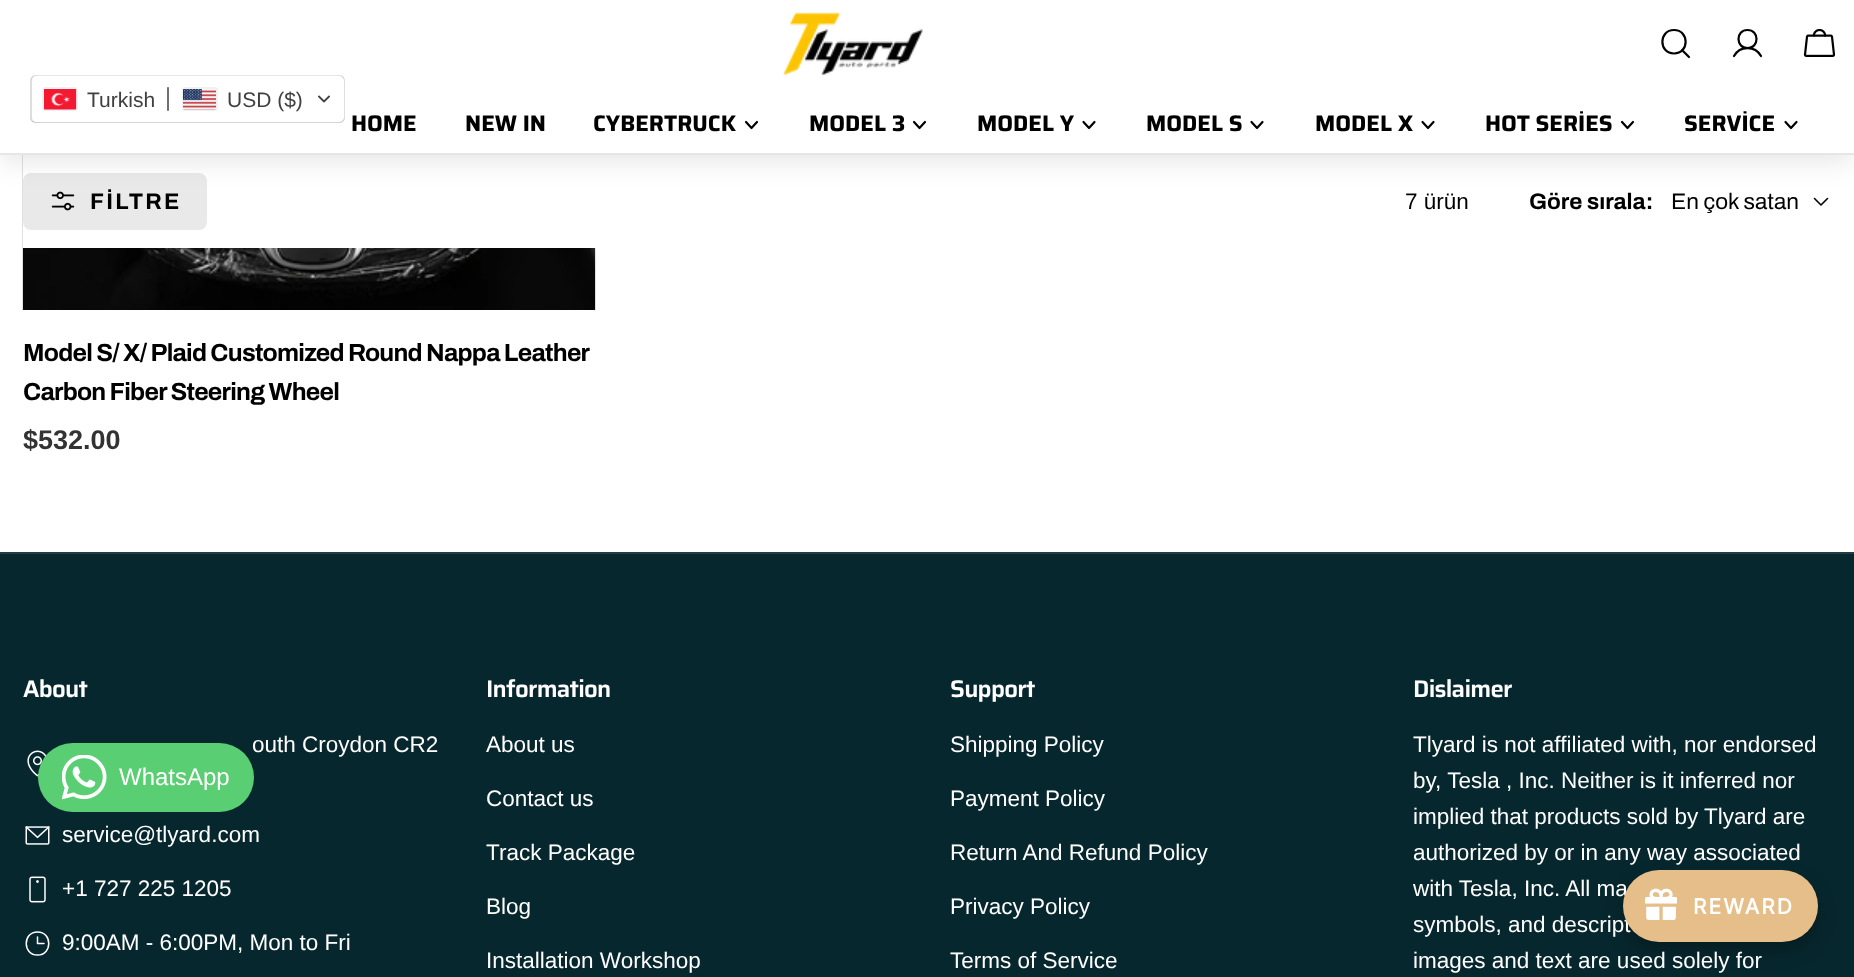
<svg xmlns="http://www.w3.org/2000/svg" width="1854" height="977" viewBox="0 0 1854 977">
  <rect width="100%" height="100%" fill="#fff"/>
  <image x="22" y="155" width="574" height="155" href="img/8.png"/>
  <path d="M23 155h573v93H23z" fill="#fff"/>
  <rect x="24" y="174" width="182" height="55" rx="7" fill="#e9e9e9" stroke="#e9e9e9" stroke-width="2"/>
  <image x="51" y="191" width="24" height="20" href="img/7.png"/>
  <path d="M1827.5 198.5L1821 205L1814.5 198.5" fill="none" stroke="#000" stroke-width="1.6" stroke-linecap="round" stroke-linejoin="round"/>
  <path d="M0 6h1854v155H0z" fill="#0000001a" filter="blur(13.5px)"/>
  <path d="M0 0h1854v153H0z" fill="#fff"/>
  <path d="M36 76H339C342 76 345 79 345 82V81C345 78 342 75 339 75H36C33 75 30 78 30 81V82C30 79 33 76 36 76Z" fill="#e6e6e6"/>
  <path d="M30 116V117C30 120 33 123 36 123H339C342 123 345 120 345 117V116C345 119 342 122 339 122H36C33 122 30 119 30 116Z" fill="#0000002b"/>
  <path d="M338 123C346 123 345 117 345 111V87C345 81 346 75 338 75C341 75 344 78 344 81V117C344 120 341 123 338 123Z" fill="#00000021"/>
  <path d="M36 75C33 75 30 78 30 81V117C30 120 33 123 36 123H38C34 123 32 120 32 117V81C32 78 34 75 38 75Z" fill="#00000021"/>
  <rect x="43" y="88" width="34" height="22" rx="2" fill="none" stroke="#e1e3e580" stroke-width="2"/>
  <image x="44" y="89" width="33" height="21" href="img/1.png"/>
  <image x="167" y="87" width="2" height="24" href="img/2.png"/>
  <rect x="183" y="88" width="34" height="22" rx="2" fill="none" stroke="#f0f1f2" stroke-width="2"/>
  <image x="183" y="89" width="33" height="21" href="img/3.png"/>
  <image x="318" y="95" width="12" height="8" href="img/4.png"/>
  <path d="M0 153h1854v2H0z" fill="#e6e6e6"/>
  <image x="782" y="12" width="141" height="64" href="img/5.png"/>
  <path d="M1674 53.5C1689.5 53.5 1689.5 30 1674 30C1658.5 30 1658.5 53.5 1674 53.5ZM1682 50L1689 57" fill="none" stroke="#000" stroke-width="2.2" stroke-linecap="round" stroke-linejoin="round"/>
  <path d="M1747.5 48C1759.5 48 1759.5 30 1747.5 30C1735.5 30 1735.5 48 1747.5 48ZM1734 56C1740 45.5 1755 45.5 1761 56" fill="none" stroke="#000" stroke-width="2.2" stroke-linecap="round" stroke-linejoin="round"/>
  <image x="1803" y="28" width="33" height="29" href="img/6.png"/>
  <path d="M757 122L751.5 128L746 122" fill="none" stroke="#000" stroke-width="2.2" stroke-linecap="round" stroke-linejoin="round"/>
  <path d="M925 122L919.5 128L914 122" fill="none" stroke="#000" stroke-width="2.2" stroke-linecap="round" stroke-linejoin="round"/>
  <path d="M1094.5 122L1089 128L1083.5 122" fill="none" stroke="#000" stroke-width="2.2" stroke-linecap="round" stroke-linejoin="round"/>
  <path d="M1262.5 122L1257 128L1251.5 122" fill="none" stroke="#000" stroke-width="2.2" stroke-linecap="round" stroke-linejoin="round"/>
  <path d="M1433.5 122L1428 128L1422.5 122" fill="none" stroke="#000" stroke-width="2.2" stroke-linecap="round" stroke-linejoin="round"/>
  <path d="M1633 122L1627.5 128L1622 122" fill="none" stroke="#000" stroke-width="2.2" stroke-linecap="round" stroke-linejoin="round"/>
  <path d="M1796.5 122L1791 128L1785.5 122" fill="none" stroke="#000" stroke-width="2.2" stroke-linecap="round" stroke-linejoin="round"/>
  <path d="M0 554h1854v423H0z" fill="#07272e"/>
  <path d="M0 552h1854v2H0z" fill="#203d43"/>
  <image x="27" y="750" width="20" height="27" href="img/9.png"/>
  <image x="25" y="826" width="25" height="19" href="img/10.png"/>
  <image x="29" y="876" width="17" height="27" href="img/11.png"/>
  <path d="M37.5 955C52.5 955 52.5 932 37.5 932C22.5 932 22.5 955 37.5 955ZM37.5 937V943.5H44" fill="none" stroke="#fff" stroke-width="1.5" stroke-linecap="round" stroke-linejoin="round"/>
  <rect x="1623" y="879" width="195" height="72" rx="36" fill="#00000040" filter="blur(9px)"/>
  <g font-family="Liberation Sans" font-size="21" fill="#404040">
    <text x="87" y="107">Turkish</text>
    <text x="227" y="107">USD ($)</text>
  </g>
  <g font-family="Saira" font-size="22.5" font-weight="bold" fill="#000">
    <text x="351" y="131">HOME</text>
    <text x="465" y="131">NEW IN</text>
    <text x="593" y="131">CYBERTRUCK</text>
    <text x="809" y="131">MODEL 3</text>
    <text x="977" y="131">MODEL Y</text>
    <text x="1146" y="131">MODEL S</text>
    <text x="1315" y="131">MODEL X</text>
    <text x="1485" y="131">HOT SERİES</text>
    <text x="1684" y="131">SERVİCE</text>
  </g>
  <text x="90" y="209" font-family="Archivo" font-size="22.5" font-weight="bold" letter-spacing="2.25" fill="#000">FİLTRE</text>
  <text x="1405" y="209" font-family="Liberation Sans" font-size="22.5" fill="#000">7 ürün</text>
  <text x="1529" y="209" font-family="Archivo" font-size="22.5" font-weight="bold" fill="#000">Göre sırala:</text>
  <text x="1671" y="209" font-family="Archivo" font-size="22.5" fill="#000">En çok satan</text>
  <g font-family="Archivo" font-size="24.75" font-weight="bold" letter-spacing="-0.75" fill="#000">
    <text x="23" y="361">Model S/ X/ Plaid Customized Round Nappa Leather</text>
    <text x="23" y="400">Carbon Fiber Steering Wheel</text>
  </g>
  <text x="23" y="449" font-family="Liberation Sans" font-size="27" font-weight="bold" fill="#333">$532.00</text>
  <text x="23" y="697" font-family="Saira" font-size="24" font-weight="600" letter-spacing="-0.75" fill="#fff">About</text>
  <g font-family="Liberation Sans" font-size="22.5" fill="#fff">
    <text x="252" y="752">outh Croydon CR2</text>
    <text x="62" y="842">service@tlyard.com</text>
    <text x="62" y="896">+1 727 225 1205</text>
    <text x="62" y="950">9:00AM - 6:00PM, Mon to Fri</text>
  </g>
  <text x="486" y="697" font-family="Saira" font-size="24" font-weight="600" letter-spacing="-0.75" fill="#fff">Information</text>
  <g font-family="Liberation Sans" font-size="22.5" fill="#fff">
    <text x="486" y="752">About us</text>
    <text x="486" y="806">Contact us</text>
    <text x="486" y="860">Track Package</text>
    <text x="486" y="914">Blog</text>
    <text x="486" y="968">Installation Workshop</text>
  </g>
  <text x="950" y="697" font-family="Saira" font-size="24" font-weight="600" letter-spacing="-0.75" fill="#fff">Support</text>
  <g font-family="Liberation Sans" font-size="22.5" fill="#fff">
    <text x="950" y="752">Shipping Policy</text>
    <text x="950" y="806">Payment Policy</text>
    <text x="950" y="860">Return And Refund Policy</text>
    <text x="950" y="914">Privacy Policy</text>
    <text x="950" y="968">Terms of Service</text>
  </g>
  <text x="1413" y="697" font-family="Saira" font-size="24" font-weight="600" letter-spacing="-0.75" fill="#fff">Dislaimer</text>
  <g font-family="Liberation Sans" font-size="22.5" fill="#fff">
    <text x="1413" y="752">Tlyard is not affiliated with, nor endorsed</text>
    <text x="1413" y="788">by, Tesla , Inc. Neither is it inferred nor</text>
    <text x="1413" y="824">implied that products sold by Tlyard are</text>
    <text x="1413" y="860">authorized by or in any way associated</text>
    <text x="1413" y="896">with Tesla, Inc. All ma</text>
    <text x="1413" y="932">symbols, and descript</text>
    <text x="1413" y="968">images and text are used solely for</text>
  </g>
  <rect x="38" y="743" width="216" height="69" rx="34.5" fill="#59ce72"/>
  <image x="62" y="755" width="45" height="45" href="img/12.png"/>
  <text x="119" y="785" font-family="Liberation Sans" font-size="24" fill="#fff">WhatsApp</text>
  <rect x="1623" y="870" width="195" height="72" rx="36" fill="#e6be8a"/>
  <image x="1645" y="888" width="32" height="32" href="img/13.png"/>
  <text x="1693" y="914" font-family="Inter" font-size="21" font-weight="bold" letter-spacing="2" fill="#fff">REWARD</text>
</svg>
